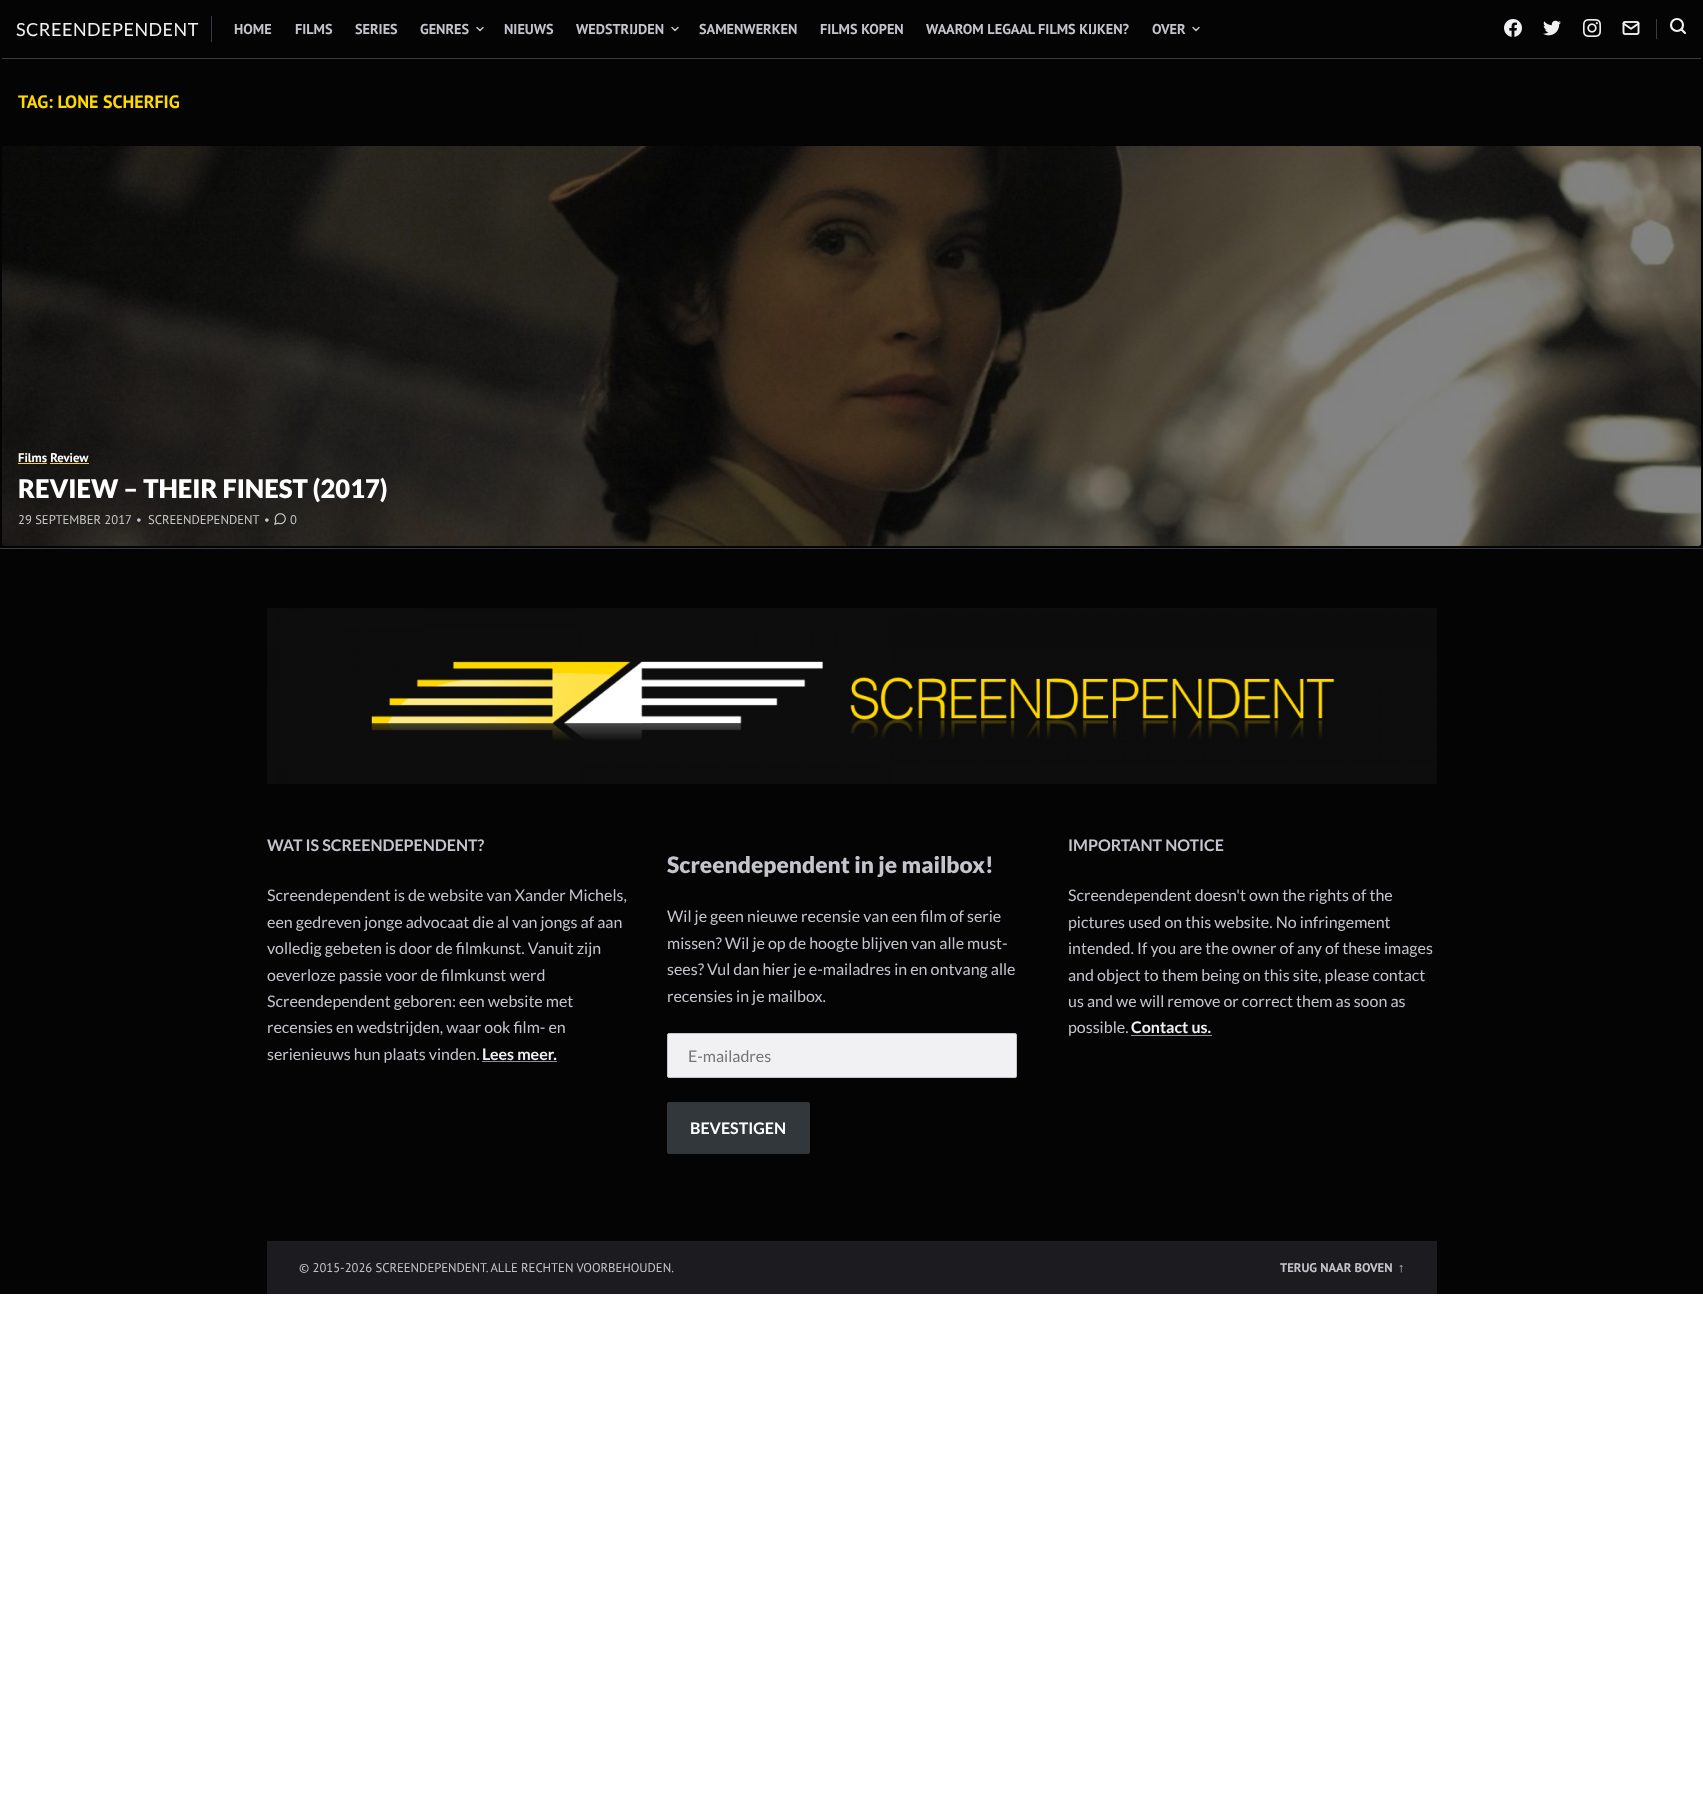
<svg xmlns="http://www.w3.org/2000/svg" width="1703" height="1803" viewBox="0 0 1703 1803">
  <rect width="100%" height="100%" fill="#fff"/>
  <path d="M0 0h1703v548H0z" fill="#040405"/>
  <path d="M211 16h1v26H211z" fill="#3b3b45"/>
  <path d="M477 27.5L480 30.5L483 27.5" fill="none" stroke="#c4c4cc" stroke-width="1.5" stroke-linecap="round" stroke-linejoin="round"/>
  <path d="M672 27.5L675 30.5L678 27.5" fill="none" stroke="#c4c4cc" stroke-width="1.5" stroke-linecap="round" stroke-linejoin="round"/>
  <path d="M1193 27.5L1196 30.5L1199 27.5" fill="none" stroke="#c4c4cc" stroke-width="1.5" stroke-linecap="round" stroke-linejoin="round"/>
  <path d="M1656 19h1v20H1656z" fill="#3b3b45"/>
  <image x="1504" y="19" width="18" height="18" href="img/1.png"/>
  <image x="1543" y="20" width="18" height="16" href="img/2.png"/>
  <image x="1583" y="19" width="18" height="18" href="img/3.png"/>
  <image x="1622" y="21" width="18" height="14" href="img/4.png"/>
  <circle cx="1677" cy="25" r="6" fill="none" stroke="#f1f1f3" stroke-width="2.2"/>
  <path d="M1685 33L1681.5 29.5" fill="none" stroke="#f1f1f3" stroke-width="2.2" stroke-linecap="round" stroke-linejoin="round"/>
  <path d="M2 58h1699v1H2z" fill="#3b3b45"/>
  <image x="2" y="146" width="1699" height="400" href="img/5.png"/>
  <path d="M18 463h29v1H18z" fill="#ffd800"/>
  <path d="M50 463h39v1H50z" fill="#ffd800"/>
  <image x="274" y="513" width="12" height="12" href="img/6.png"/>
  <path d="M0 549h1703v745H0z" fill="#040405"/>
  <path d="M0 548h1703v1H0z" fill="#3b3b45"/>
  <image x="267" y="608" width="1170" height="176" href="img/7.png"/>
  <path d="M482 1061h75v1H482z" fill="#8d8d9d"/>
  <rect x="667.5" y="1033.5" width="349" height="44" rx="1.5" fill="#f1f1f3" stroke="#c4c4cc"/>
  <rect x="667" y="1102" width="143" height="52" rx="2" fill="#32373c"/>
  <path d="M1131 1035h81v1H1131z" fill="#8d8d9d"/>
  <path d="M267 1241h1170v53H267z" fill="#1c1c20"/>
  <text x="16" y="36" font-family="Lato" font-size="18" letter-spacing="0.5" fill="#f1f1f3">SCREENDEPENDENT</text>
  <g font-family="PT Sans" font-size="14.25" font-weight="bold" fill="#c4c4cc">
    <text x="234" y="34">HOME</text>
    <text x="295" y="34">FILMS</text>
    <text x="355" y="34">SERIES</text>
    <text x="420" y="34">GENRES</text>
    <text x="504" y="34">NIEUWS</text>
    <text x="576" y="34">WEDSTRIJDEN</text>
    <text x="699" y="34">SAMENWERKEN</text>
    <text x="820" y="34">FILMS KOPEN</text>
    <text x="926" y="34">WAAROM LEGAAL FILMS KIJKEN?</text>
    <text x="1152" y="34">OVER</text>
  </g>
  <text x="18" y="108" font-family="PT Sans" font-size="18" font-weight="bold" fill="#ffd800">TAG: LONE SCHERFIG</text>
  <text x="18" y="462" font-family="PT Sans" font-size="12.65" font-weight="bold" fill="#fff">Films Review</text>
  <text x="18" y="498" font-family="Lato" font-size="25.6" font-weight="900" fill="#fff">REVIEW – THEIR FINEST (2017)</text>
  <text x="18" y="524" font-family="PT Sans" font-size="12.65" fill="#c7c7c6">29 SEPTEMBER 2017</text>
  <text x="136" y="524" font-family="PT Sans" font-size="12.65" fill="#c4c4cc">•</text>
  <g font-family="PT Sans" font-size="12.65" fill="#c7c7c6">
    <text x="148" y="524">SCREENDEPENDENT</text>
    <text x="264" y="524">•</text>
  </g>
  <text x="290" y="524" font-family="PT Sans" font-size="12.65" fill="#c4c4cc">0</text>
  <text x="267" y="851" font-family="Lato" font-size="16" font-weight="bold" fill="#c4c4cc">WAT IS SCREENDEPENDENT?</text>
  <g font-family="Lato" font-size="16" fill="#c4c4cc">
    <text x="267" y="901">Screendependent is de website van Xander Michels,</text>
    <text x="267" y="928">een gedreven jonge advocaat die al van jongs af aan</text>
    <text x="267" y="954">volledig gebeten is door de filmkunst. Vanuit zijn</text>
    <text x="267" y="981">oeverloze passie voor de filmkunst werd</text>
    <text x="267" y="1007">Screendependent geboren: een website met</text>
    <text x="267" y="1033">recensies en wedstrijden, waar ook film- en</text>
    <text x="267" y="1060">serienieuws hun plaats vinden.</text>
  </g>
  <text x="482" y="1060" font-family="Lato" font-size="16" font-weight="bold" fill="#f1f1f3">Lees meer.</text>
  <text x="667" y="873" font-family="Lato" font-size="22.75" font-weight="900" fill="#c4c4cc">Screendependent in je mailbox!</text>
  <g font-family="Lato" font-size="16" fill="#c4c4cc">
    <text x="667" y="922">Wil je geen nieuwe recensie van een film of serie</text>
    <text x="667" y="949">missen? Wil je op de hoogte blijven van alle must-</text>
    <text x="667" y="975">sees? Vul dan hier je e-mailadres in en ontvang alle</text>
    <text x="667" y="1002">recensies in je mailbox.</text>
  </g>
  <text x="688" y="1062" font-family="Lato" font-size="16" fill="#757575">E-mailadres</text>
  <text x="690" y="1134" font-family="Lato" font-size="16" font-weight="bold" fill="#fff">BEVESTIGEN</text>
  <text x="1068" y="851" font-family="Lato" font-size="16" font-weight="bold" fill="#c4c4cc">IMPORTANT NOTICE</text>
  <g font-family="Lato" font-size="16" fill="#c4c4cc">
    <text x="1068" y="901">Screendependent doesn't own the rights of the</text>
    <text x="1068" y="928">pictures used on this website. No infringement</text>
    <text x="1068" y="954">intended. If you are the owner of any of these images</text>
    <text x="1068" y="981">and object to them being on this site, please contact</text>
    <text x="1068" y="1007">us and we will remove or correct them as soon as</text>
    <text x="1068" y="1033">possible.</text>
  </g>
  <text x="1131" y="1033" font-family="Lato" font-size="16" font-weight="bold" fill="#f1f1f3">Contact us.</text>
  <text x="299" y="1272" font-family="PT Sans" font-size="12.65" fill="#c4c4cc">© 2015-2026 SCREENDEPENDENT. ALLE RECHTEN VOORBEHOUDEN.</text>
  <text x="1280" y="1272" font-family="PT Sans" font-size="12.65" font-weight="bold" fill="#c4c4cc">TERUG NAAR BOVEN</text>
  <text x="1398" y="1272" font-family="Liberation Sans" font-size="12.65" font-weight="bold" fill="#c4c4cc">↑</text>
</svg>
